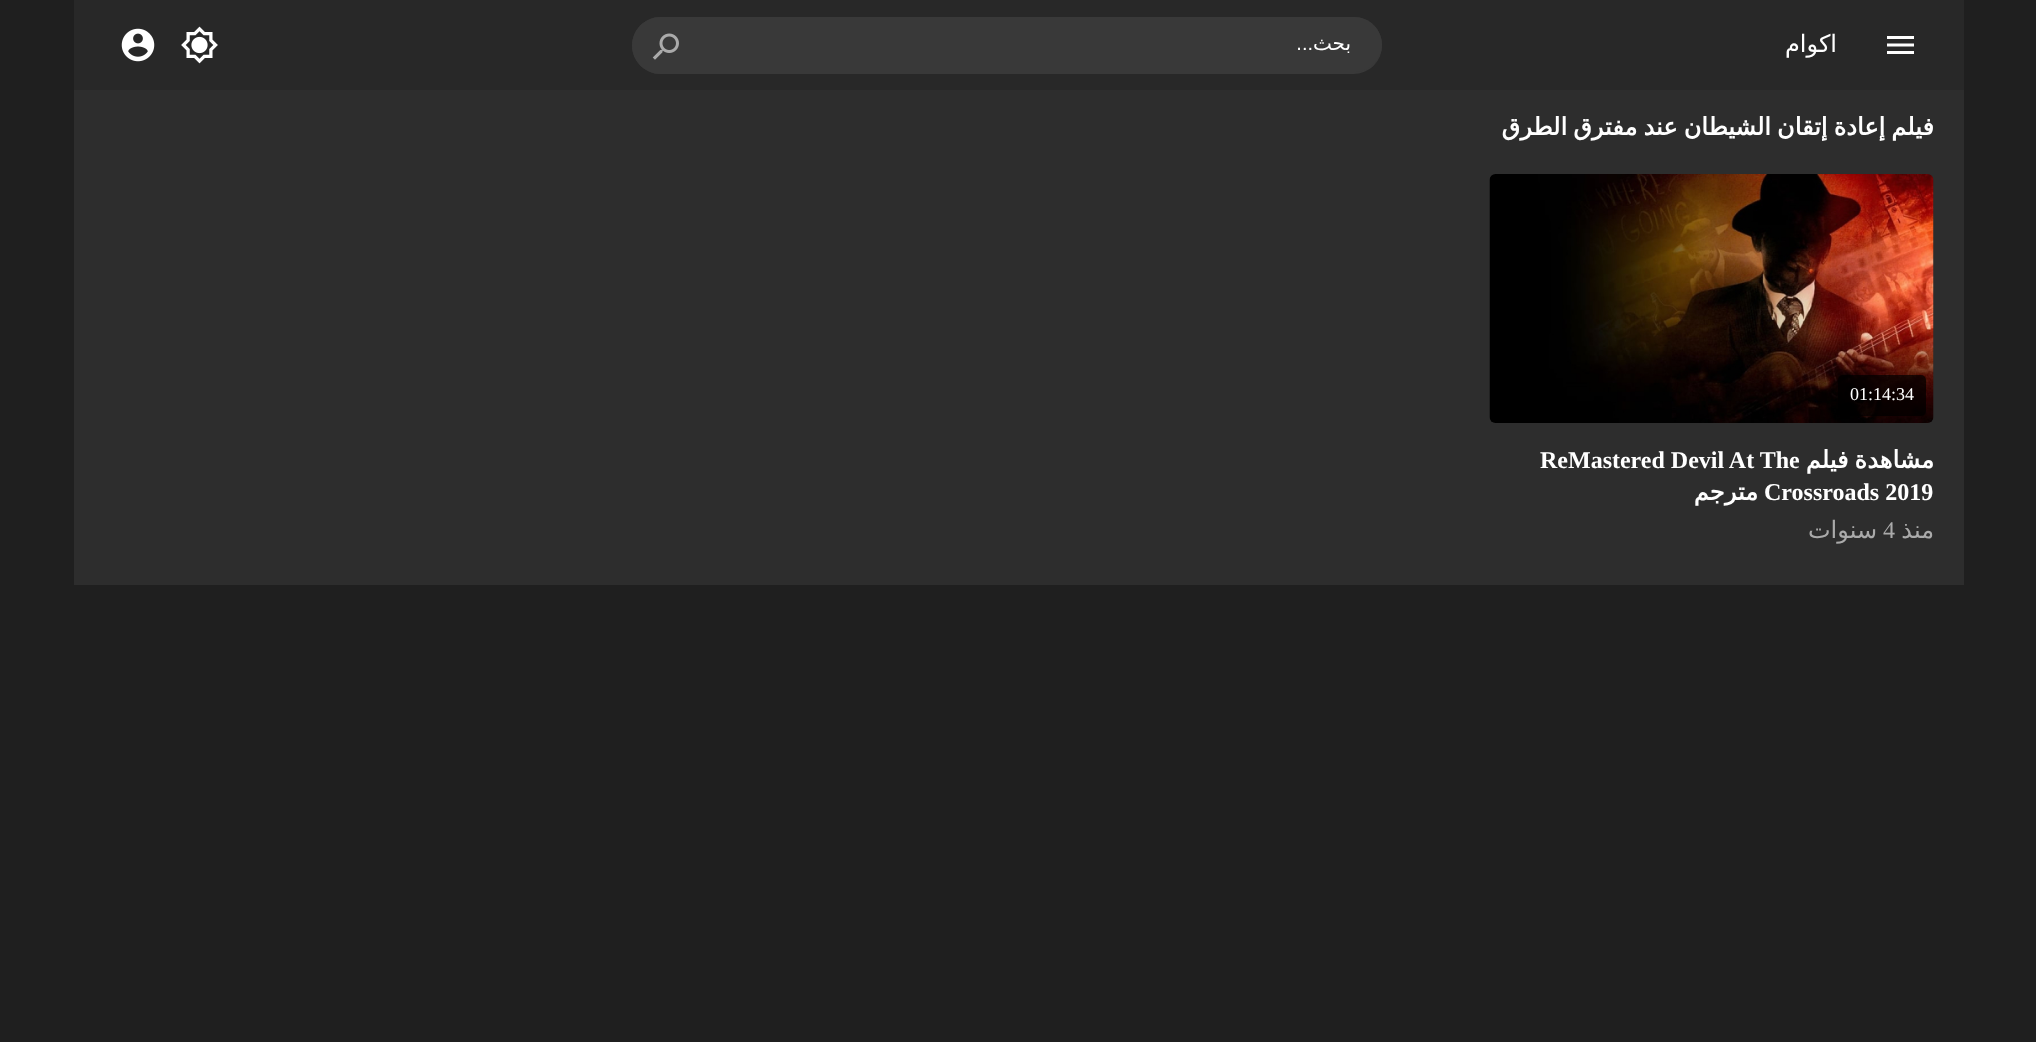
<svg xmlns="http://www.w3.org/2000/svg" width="2036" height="1042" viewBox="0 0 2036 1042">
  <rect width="100%" height="100%" fill="#1f1f1f"/>
  <path d="M74 0h1890v90H74z" fill="#282828"/>
  <image x="1887" y="36" width="27" height="18" href="img/1.png"/>
  <rect x="632" y="17" width="750" height="57" rx="28.5" fill="#393939"/>
  <path d="M707 17H1354.5C1369.5 17 1382 29.5 1382 44.5C1382 59.5 1369.5 72 1354.5 72H707Z" fill="#393939"/>
  <path d="M660.5 17H707V74H660.5C645 74 632 61 632 45.5C632 30 645 17 660.5 17Z" fill="#393939"/>
  <image x="652" y="33" width="27" height="27" href="img/2.png"/>
  <image x="181" y="26" width="37" height="38" href="img/3.png"/>
  <image x="121" y="28" width="34" height="34" href="img/4.png"/>
  <path d="M74 90h1890v495H74z" fill="#2d2d2d"/>
  <image x="1489" y="174" width="445" height="249" href="img/5.png"/>
  <rect x="1838" y="375" width="88" height="41" rx="5" fill="#000000b3"/>
  <text x="1837" y="52" font-family="DejaVu Sans" font-size="24" direction="rtl" fill="#fff">اكوام</text>
  <text x="1351" y="50" font-family="DejaVu Sans" font-size="20" direction="rtl" fill="#fff">بحث</text>
  <text x="1313" y="50" font-family="Liberation Sans" font-size="20" direction="rtl" fill="#fff">...</text>
  <text x="1934" y="135" word-spacing="-1.5" font-family="DejaVu Sans" font-size="24" font-weight="bold" direction="rtl" fill="#fff">فيلم إعادة إتقان الشيطان عند مفترق الطرق</text>
  <text x="1850" y="400" font-family="Liberation Serif" font-size="18" fill="#fff">01:14:34</text>
  <text x="1934" y="468" word-spacing="-1.5" font-family="DejaVu Sans" font-size="24" font-weight="bold" direction="rtl" fill="#fff">مشاهدة فيلم</text>
  <g font-family="Liberation Serif" font-size="24" font-weight="bold" fill="#fff">
    <text x="1540" y="468">ReMastered Devil At The</text>
    <text x="1764" y="500">Crossroads 2019</text>
  </g>
  <text x="1758" y="500" font-family="DejaVu Sans" font-size="24" font-weight="bold" direction="rtl" fill="#fff">مترجم</text>
  <text x="1934" y="538" font-family="DejaVu Sans" font-size="24" direction="rtl" fill="#aaa">منذ</text>
  <text x="1883" y="538" font-family="Liberation Serif" font-size="24" fill="#aaa">4</text>
  <text x="1877" y="538" font-family="DejaVu Sans" font-size="24" direction="rtl" fill="#aaa">سنوات</text>
</svg>
